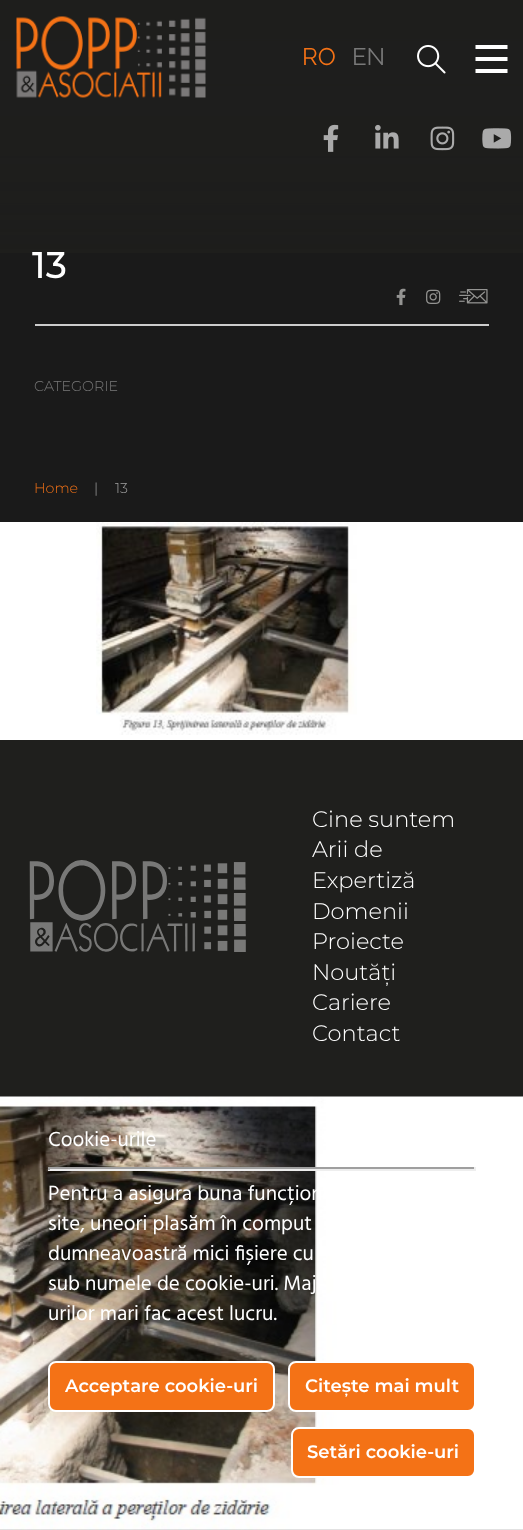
<svg xmlns="http://www.w3.org/2000/svg" width="523" height="1530" viewBox="0 0 523 1530">
  <rect width="100%" height="100%" fill="#fff"/>
  <path d="M0 0h523v522H0z" fill="#1a1a1a"/>
  <image x="0" y="0" width="523" height="253" href="img/7.png"/>
  <image x="16" y="16" width="190" height="82" href="img/1.png"/>
  <image x="417" y="44" width="29" height="30" href="img/2.png"/>
  <path d="M475.5 73H507.5V69H475.5ZM475.5 61H507.5V57H475.5ZM475.5 45V49H507.5V45Z" fill="#fff"/>
  <image x="323" y="124" width="16" height="28" href="img/3.png"/>
  <image x="375" y="124" width="24" height="25" href="img/4.png"/>
  <image x="430" y="126" width="25" height="25" href="img/5.png"/>
  <image x="482" y="128" width="30" height="21" href="img/6.png"/>
  <path d="M35 324h454v2H35z" fill="#ccc"/>
  <image x="396" y="288" width="10" height="18" href="img/8.png"/>
  <image x="426" y="289" width="15" height="15" href="img/9.png"/>
  <image x="459" y="289" width="29" height="15" href="img/10.png"/>
  <image x="96" y="522" width="261" height="213" href="img/11.png"/>
  <path d="M0 740h523v790H0z" fill="#1f1f1d"/>
  <image x="21" y="1529" width="231" height="1" href="img/12.png"/>
  <image x="29" y="860" width="217" height="92" href="img/13.png"/>
  <image x="250" y="1529" width="25" height="1" href="img/14.png"/>
  <image x="0" y="1096" width="523" height="434" href="img/15.png"/>
  <path d="M48 1167h428v2H48z" fill="#9f9f9f"/>
  <path d="M474 1167h2v3H474z" fill="#eee"/>
  <path d="M48 1169h428v2H48z" fill="#eee"/>
  <path d="M48 1167h2v3H48z" fill="#9f9f9f"/>
  <rect x="49" y="1362" width="225" height="49" rx="7" fill="#f47216" stroke="#fff" stroke-width="2"/>
  <rect x="289" y="1362" width="186" height="49" rx="7" fill="#f47216" stroke="#fff" stroke-width="2"/>
  <rect x="292" y="1428" width="183" height="49" rx="7" fill="#f47216" stroke="#fff" stroke-width="2"/>
  <text x="302" y="65" font-family="Raleway" font-size="24" fill="#f47216">RO</text>
  <text x="352" y="65" font-family="Raleway" font-size="24" fill="#797979">EN</text>
  <text x="32" y="278" font-family="Montserrat" font-size="37" font-weight="500" fill="#fff">13</text>
  <text x="34" y="391" font-family="Montserrat" font-size="14.25" font-weight="300" fill="#797979">CATEGORIE</text>
  <text x="34" y="493" font-family="Montserrat" font-size="14.25" font-weight="300" fill="#f47216">Home</text>
  <g font-family="Montserrat" font-size="14.25" font-weight="300" fill="#a1a1a1">
    <text x="94" y="493">|</text>
    <text x="115" y="493">13</text>
  </g>
  <g font-family="Montserrat" font-size="22.5" font-weight="300" fill="#fff">
    <text x="312" y="827">Cine suntem</text>
    <text x="312" y="857">Arii de</text>
    <text x="312" y="888">Expertiză</text>
    <text x="312" y="919">Domenii</text>
    <text x="312" y="949">Proiecte</text>
    <text x="312" y="980">Noutăți</text>
    <text x="312" y="1010">Cariere</text>
    <text x="312" y="1041">Contact</text>
  </g>
  <g font-family="Hind" font-size="21" fill="#fff">
    <text x="48" y="1146">Cookie-urile</text>
    <text x="48" y="1200">Pentru a asigura buna funcțion</text>
    <text x="48" y="1230">site, uneori plasăm în comput</text>
    <text x="48" y="1260">dumneavoastră mici fișiere cu</text>
    <text x="48" y="1290">sub numele de cookie-uri. Maj</text>
    <text x="48" y="1320">urilor mari fac acest lucru.</text>
  </g>
  <g font-family="Montserrat" font-size="18" font-weight="600" fill="#fff">
    <text x="65" y="1392">Acceptare cookie-uri</text>
    <text x="305" y="1392">Citește mai mult</text>
    <text x="307" y="1458">Setări cookie-uri</text>
  </g>
</svg>
